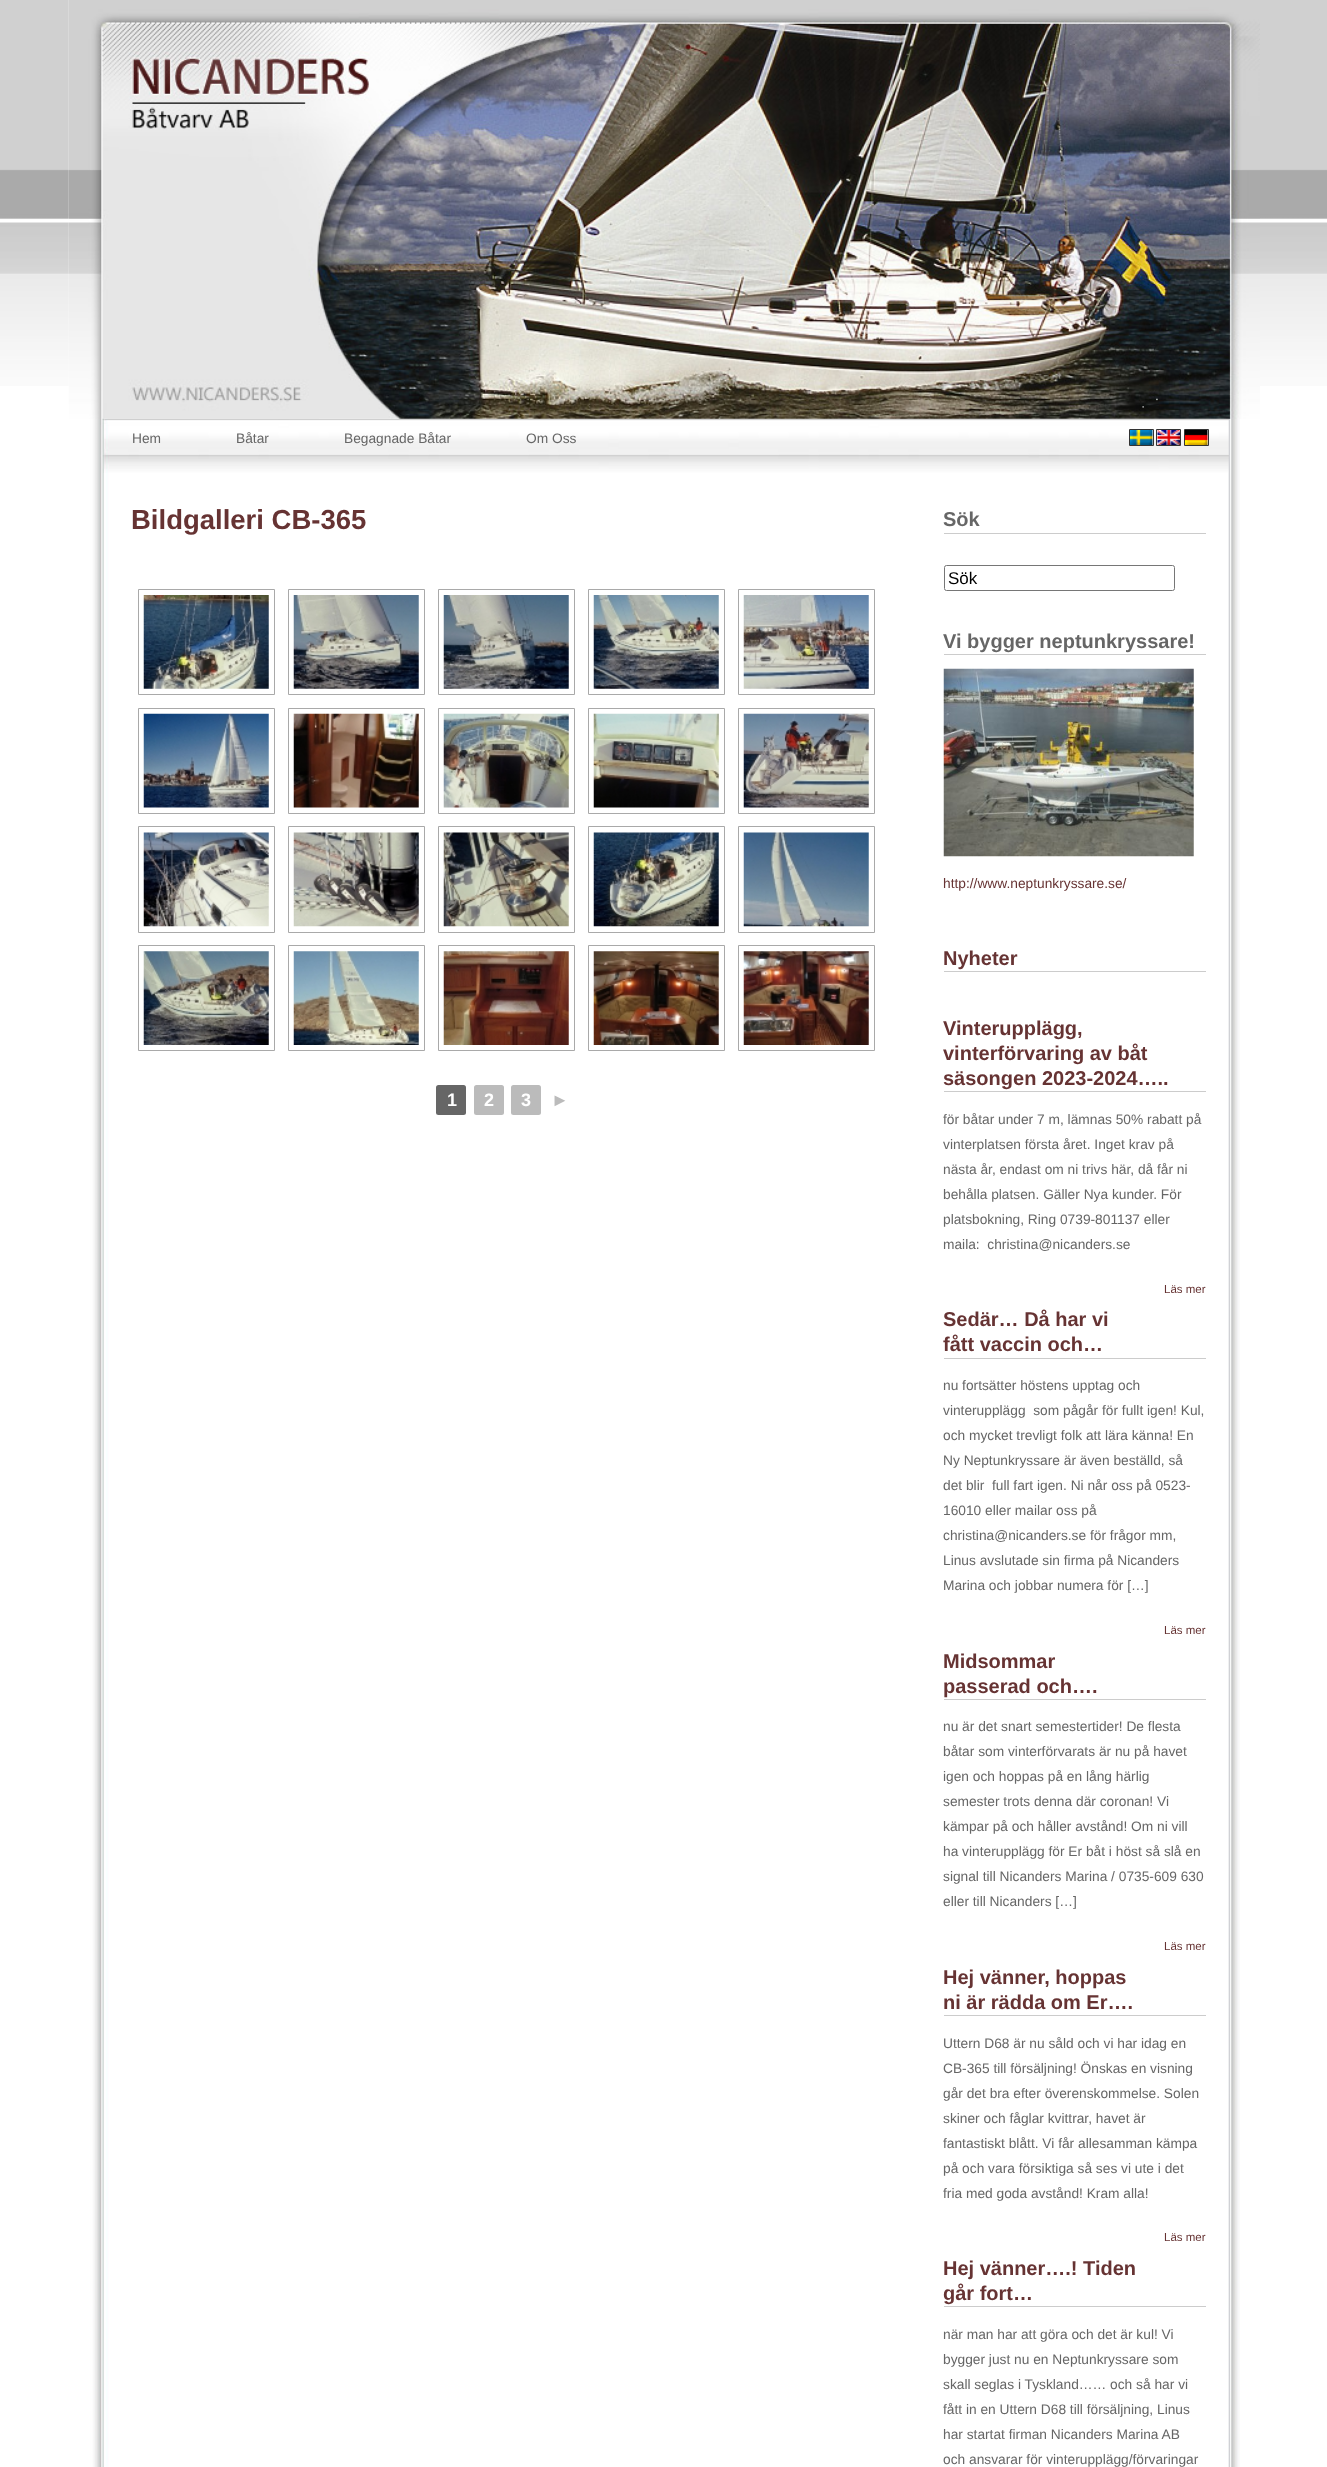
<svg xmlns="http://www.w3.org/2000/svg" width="1327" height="2467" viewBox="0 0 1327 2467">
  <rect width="100%" height="100%" fill="#fff"/>
  <image x="0" y="0" width="1327" height="386" href="img/1.png"/>
  <image x="68" y="0" width="1172" height="2467" href="img/2.png"/>
  <image x="100" y="418" width="1129" height="55" href="img/7.png"/>
  <image x="107" y="418" width="104" height="6" href="img/8.png"/>
  <image x="211" y="418" width="108" height="1" href="img/9.png"/>
  <image x="501" y="418" width="125" height="1" href="img/10.png"/>
  <image x="68" y="0" width="1192" height="419" href="img/3.png"/>
  <path d="M1129.5 429.5h24v16H1129.5z" fill="none" stroke="#333"/>
  <path d="M1156.5 429.5h24v16H1156.5z" fill="none" stroke="#333"/>
  <path d="M1184.5 429.5h24v16H1184.5z" fill="none" stroke="#333"/>
  <image x="1130" y="430" width="23" height="15" href="img/4.png"/>
  <image x="1157" y="430" width="23" height="15" href="img/5.png"/>
  <image x="1185" y="430" width="23" height="15" href="img/6.png"/>
  <path d="M138.5 589.5h136v105H138.5z" fill="none" stroke="#a9a9a9"/>
  <image x="143" y="595" width="126" height="94" href="img/11.png"/>
  <path d="M288.5 589.5h136v105H288.5z" fill="none" stroke="#a9a9a9"/>
  <image x="293" y="595" width="126" height="94" href="img/12.png"/>
  <path d="M438.5 589.5h136v105H438.5z" fill="none" stroke="#a9a9a9"/>
  <image x="443" y="595" width="126" height="94" href="img/13.png"/>
  <path d="M588.5 589.5h136v105H588.5z" fill="none" stroke="#a9a9a9"/>
  <image x="593" y="595" width="126" height="94" href="img/14.png"/>
  <path d="M738.5 589.5h136v105H738.5z" fill="none" stroke="#a9a9a9"/>
  <image x="743" y="595" width="126" height="94" href="img/15.png"/>
  <path d="M138.5 708.5h136v105H138.5z" fill="none" stroke="#a9a9a9"/>
  <image x="143" y="713" width="126" height="95" href="img/16.png"/>
  <path d="M288.5 708.5h136v105H288.5z" fill="none" stroke="#a9a9a9"/>
  <image x="293" y="713" width="126" height="95" href="img/17.png"/>
  <path d="M438.5 708.5h136v105H438.5z" fill="none" stroke="#a9a9a9"/>
  <image x="443" y="713" width="126" height="95" href="img/18.png"/>
  <path d="M588.5 708.5h136v105H588.5z" fill="none" stroke="#a9a9a9"/>
  <image x="593" y="713" width="126" height="95" href="img/19.png"/>
  <path d="M738.5 708.5h136v105H738.5z" fill="none" stroke="#a9a9a9"/>
  <image x="743" y="713" width="126" height="95" href="img/20.png"/>
  <path d="M138.5 826.5h136v106H138.5z" fill="none" stroke="#a9a9a9"/>
  <image x="143" y="832" width="126" height="95" href="img/21.png"/>
  <path d="M288.5 826.5h136v106H288.5z" fill="none" stroke="#a9a9a9"/>
  <image x="293" y="832" width="126" height="95" href="img/22.png"/>
  <path d="M438.5 826.5h136v106H438.5z" fill="none" stroke="#a9a9a9"/>
  <image x="443" y="832" width="126" height="95" href="img/23.png"/>
  <path d="M588.5 826.5h136v106H588.5z" fill="none" stroke="#a9a9a9"/>
  <image x="593" y="832" width="126" height="95" href="img/24.png"/>
  <path d="M738.5 826.5h136v106H738.5z" fill="none" stroke="#a9a9a9"/>
  <image x="743" y="832" width="126" height="95" href="img/25.png"/>
  <path d="M138.5 945.5h136v105H138.5z" fill="none" stroke="#a9a9a9"/>
  <image x="143" y="951" width="126" height="94" href="img/26.png"/>
  <path d="M288.5 945.5h136v105H288.5z" fill="none" stroke="#a9a9a9"/>
  <image x="293" y="951" width="126" height="94" href="img/27.png"/>
  <path d="M438.5 945.5h136v105H438.5z" fill="none" stroke="#a9a9a9"/>
  <image x="443" y="951" width="126" height="94" href="img/28.png"/>
  <path d="M588.5 945.5h136v105H588.5z" fill="none" stroke="#a9a9a9"/>
  <image x="593" y="951" width="126" height="94" href="img/29.png"/>
  <path d="M738.5 945.5h136v105H738.5z" fill="none" stroke="#a9a9a9"/>
  <image x="743" y="951" width="126" height="94" href="img/30.png"/>
  <rect x="436" y="1085" width="30" height="30" rx="2.5" fill="#666"/>
  <rect x="474" y="1085" width="30" height="30" rx="2.5" fill="#bbb"/>
  <rect x="511" y="1085" width="30" height="30" rx="2.5" fill="#bbb"/>
  <path d="M944 533h262v1H944z" fill="#ccc"/>
  <rect x="944.5" y="565.5" width="230" height="25" rx="2" fill="none" stroke="#767676"/>
  <path d="M944 654h262v1H944z" fill="#ccc"/>
  <image x="943" y="668" width="251" height="189" href="img/31.png"/>
  <path d="M944 971h262v1H944z" fill="#ccc"/>
  <path d="M944 1091h262v1H944z" fill="#ccc"/>
  <path d="M944 1358h262v1H944z" fill="#ccc"/>
  <path d="M944 1699h262v1H944z" fill="#ccc"/>
  <path d="M944 2015h262v1H944z" fill="#ccc"/>
  <path d="M944 2306h262v1H944z" fill="#ccc"/>
  <g font-family="Liberation Sans" font-size="13.75" fill="#666">
    <text x="132" y="443">Hem</text>
    <text x="236" y="443">Båtar</text>
    <text x="344" y="443">Begagnade Båtar</text>
    <text x="526" y="443">Om Oss</text>
  </g>
  <text x="131" y="529" font-family="Liberation Sans" font-size="27.5" font-weight="bold" fill="#633">Bildgalleri CB-365</text>
  <g font-family="Liberation Sans" font-size="18" font-weight="bold" fill="#fff">
    <text x="447" y="1106">1</text>
    <text x="484" y="1106">2</text>
    <text x="521" y="1106">3</text>
  </g>
  <text x="551" y="1106" font-family="Liberation Sans" font-size="18" font-weight="bold" fill="#bbb">►</text>
  <text x="943" y="526" font-family="Liberation Sans" font-size="20" font-weight="bold" fill="#666">Sök</text>
  <text x="948" y="584" font-family="Liberation Sans" font-size="17" fill="#000">Sök</text>
  <text x="943" y="648" font-family="Liberation Sans" font-size="20" font-weight="bold" fill="#666">Vi bygger neptunkryssare!</text>
  <text x="943" y="888" font-family="Liberation Sans" font-size="13.75" fill="#633">http://www.neptunkryssare.se/</text>
  <g font-family="Liberation Sans" font-size="20" font-weight="bold" fill="#633">
    <text x="943" y="965">Nyheter</text>
    <text x="943" y="1035">Vinterupplägg,</text>
    <text x="943" y="1060">vinterförvaring av båt</text>
    <text x="943" y="1085">säsongen 2023-2024…..</text>
  </g>
  <g font-family="Liberation Sans" font-size="13.75" fill="#666">
    <text x="943" y="1124">för båtar under 7 m, lämnas 50% rabatt på</text>
    <text x="943" y="1149">vinterplatsen första året. Inget krav på</text>
    <text x="943" y="1174">nästa år, endast om ni trivs här, då får ni</text>
    <text x="943" y="1199">behålla platsen. Gäller Nya kunder. För</text>
    <text x="943" y="1224">platsbokning, Ring 0739-801137 eller</text>
    <text x="943" y="1249" xml:space="preserve">maila:  christina@nicanders.se</text>
  </g>
  <text x="1164" y="1293" font-family="Liberation Sans" font-size="11.5" fill="#633">Läs mer</text>
  <g font-family="Liberation Sans" font-size="20" font-weight="bold" fill="#633">
    <text x="943" y="1326">Sedär… Då har vi</text>
    <text x="943" y="1351">fått vaccin och…</text>
  </g>
  <g font-family="Liberation Sans" font-size="13.75" fill="#666">
    <text x="943" y="1390">nu fortsätter höstens upptag och</text>
    <text x="943" y="1415" xml:space="preserve">vinterupplägg  som pågår för fullt igen! Kul,</text>
    <text x="943" y="1440">och mycket trevligt folk att lära känna! En</text>
    <text x="943" y="1465">Ny Neptunkryssare är även beställd, så</text>
    <text x="943" y="1490" xml:space="preserve">det blir  full fart igen. Ni når oss på 0523-</text>
    <text x="943" y="1515">16010 eller mailar oss på</text>
    <text x="943" y="1540">christina@nicanders.se för frågor mm,</text>
    <text x="943" y="1565">Linus avslutade sin firma på Nicanders</text>
    <text x="943" y="1590">Marina och jobbar numera för […]</text>
  </g>
  <text x="1164" y="1634" font-family="Liberation Sans" font-size="11.5" fill="#633">Läs mer</text>
  <g font-family="Liberation Sans" font-size="20" font-weight="bold" fill="#633">
    <text x="943" y="1668">Midsommar</text>
    <text x="943" y="1693">passerad och….</text>
  </g>
  <g font-family="Liberation Sans" font-size="13.75" fill="#666">
    <text x="943" y="1731">nu är det snart semestertider! De flesta</text>
    <text x="943" y="1756">båtar som vinterförvarats är nu på havet</text>
    <text x="943" y="1781">igen och hoppas på en lång härlig</text>
    <text x="943" y="1806">semester trots denna där coronan! Vi</text>
    <text x="943" y="1831">kämpar på och håller avstånd! Om ni vill</text>
    <text x="943" y="1856">ha vinterupplägg för Er båt i höst så slå en</text>
    <text x="943" y="1881">signal till Nicanders Marina / 0735-609 630</text>
    <text x="943" y="1906">eller till Nicanders […]</text>
  </g>
  <text x="1164" y="1950" font-family="Liberation Sans" font-size="11.5" fill="#633">Läs mer</text>
  <g font-family="Liberation Sans" font-size="20" font-weight="bold" fill="#633">
    <text x="943" y="1984">Hej vänner, hoppas</text>
    <text x="943" y="2009">ni är rädda om Er….</text>
  </g>
  <g font-family="Liberation Sans" font-size="13.75" fill="#666">
    <text x="943" y="2048">Uttern D68 är nu såld och vi har idag en</text>
    <text x="943" y="2073">CB-365 till försäljning! Önskas en visning</text>
    <text x="943" y="2098">går det bra efter överenskommelse. Solen</text>
    <text x="943" y="2123">skiner och fåglar kvittrar, havet är</text>
    <text x="943" y="2148">fantastiskt blått. Vi får allesamman kämpa</text>
    <text x="943" y="2173">på och vara försiktiga så ses vi ute i det</text>
    <text x="943" y="2198">fria med goda avstånd! Kram alla!</text>
  </g>
  <text x="1164" y="2241" font-family="Liberation Sans" font-size="11.5" fill="#633">Läs mer</text>
  <g font-family="Liberation Sans" font-size="20" font-weight="bold" fill="#633">
    <text x="943" y="2275">Hej vänner….! Tiden</text>
    <text x="943" y="2300">går fort…</text>
  </g>
  <g font-family="Liberation Sans" font-size="13.75" fill="#666">
    <text x="943" y="2339">när man har att göra och det är kul! Vi</text>
    <text x="943" y="2364">bygger just nu en Neptunkryssare som</text>
    <text x="943" y="2389">skall seglas i Tyskland…… och så har vi</text>
    <text x="943" y="2414">fått in en Uttern D68 till försäljning, Linus</text>
    <text x="943" y="2439">har startat firman Nicanders Marina AB</text>
    <text x="943" y="2464">och ansvarar för vinterupplägg/förvaringar</text>
  </g>
</svg>
